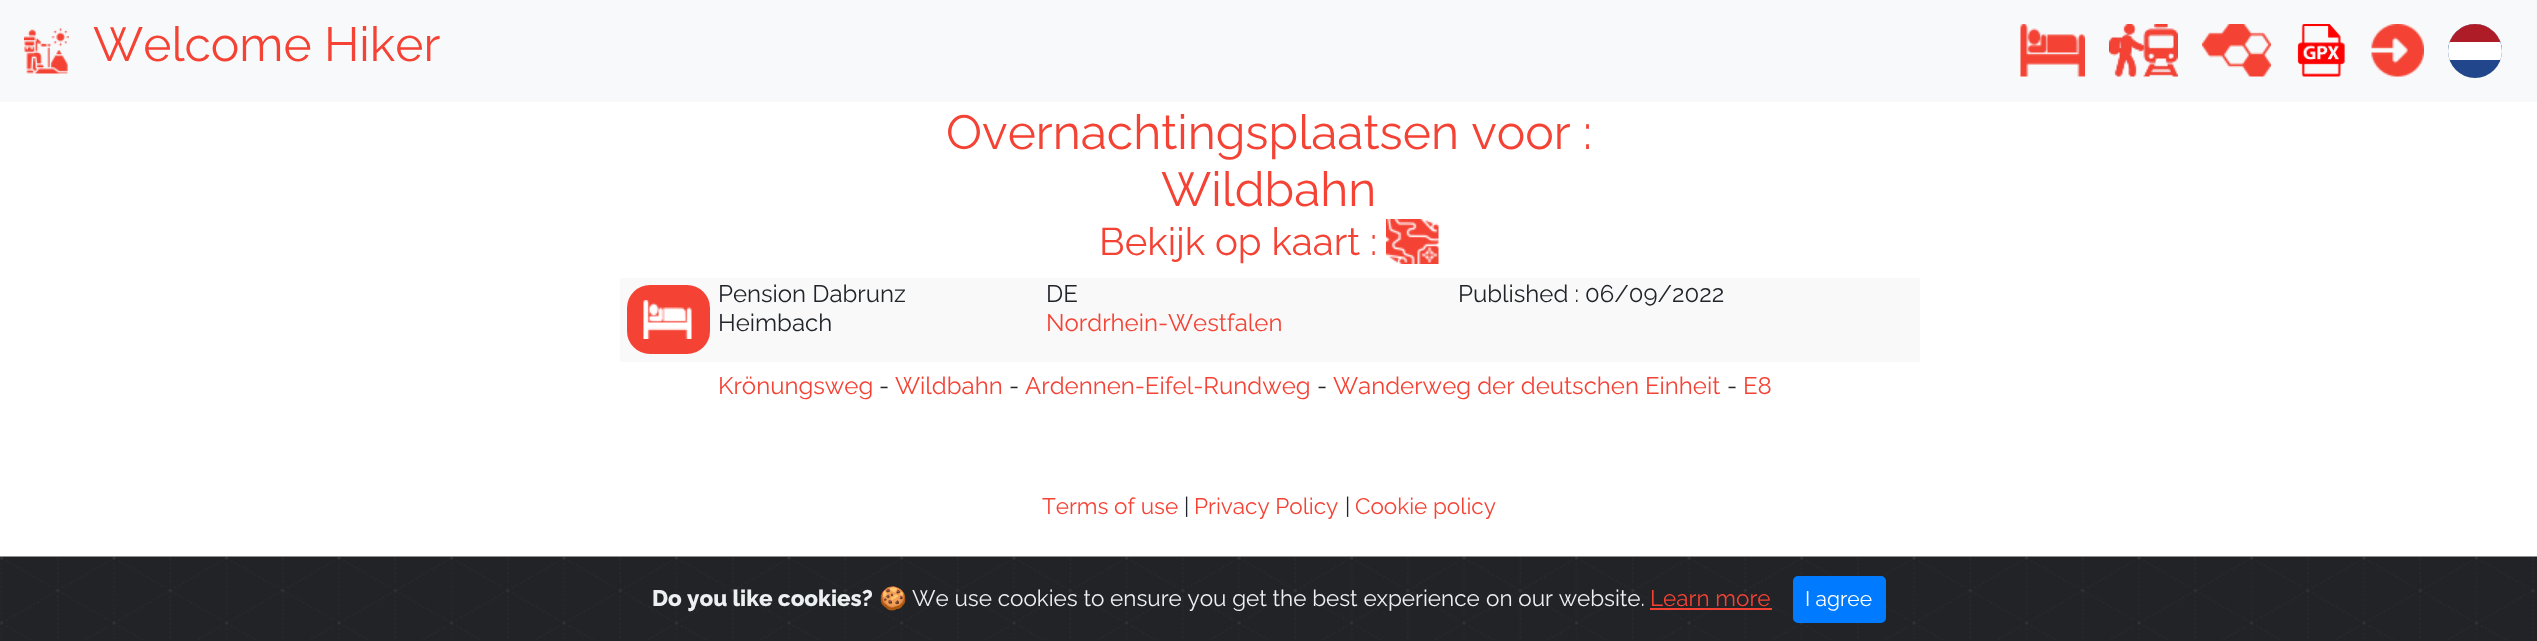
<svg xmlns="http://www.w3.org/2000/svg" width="2537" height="641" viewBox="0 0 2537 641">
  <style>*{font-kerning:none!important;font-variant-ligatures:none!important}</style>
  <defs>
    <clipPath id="clip1"><rect x="2448" y="24" width="54" height="54" rx="27"/></clipPath>
  </defs>
  <rect width="100%" height="100%" fill="#fff"/>
  <path d="M0 0h2537v102H0z" fill="#f8f9fa"/>
  <image x="24" y="28" width="45" height="46" href="img/1.png"/>
  <image x="2020" y="24" width="65" height="53" href="img/2.png"/>
  <image x="2109" y="24" width="69" height="53" href="img/3.png"/>
  <image x="2202" y="24" width="69" height="53" href="img/4.png"/>
  <image x="2297" y="24" width="48" height="53" href="img/5.png"/>
  <image x="2371" y="24" width="53" height="53" href="img/6.png"/>
  <circle cx="2475" cy="51" r="27" fill="#21468b"/>
  <g clip-path="url(#clip1)">
    <path d="M2475 24C2490 24 2502 36 2502 51V60H2448V51C2448 36 2460 24 2475 24Z" fill="#fff"/>
    <path d="M2449 24h52v18H2449z" fill="#ae1c28"/>
  </g>
  <image x="1386" y="219" width="53" height="45" href="img/7.png"/>
  <path d="M620 278h1300v84H620z" fill="#f9f9f9"/>
  <rect x="631" y="289" width="75" height="61" rx="19" fill="#f44335" stroke="#f44335" stroke-width="8"/>
  <image x="643" y="300" width="49" height="39" href="img/8.png"/>
  <path d="M0 640h2537v1H0z" fill="#212327"/>
  <image x="0" y="556" width="2537" height="84" href="img/9.png"/>
  <path d="M1650 608h122v2H1650z" fill="#f44335"/>
  <rect x="1794" y="577" width="91" height="45" rx="4" fill="#007bff" stroke="#007bff" stroke-width="2"/>
  <g font-family="Raleway" font-size="48" fill="#f44335">
    <text x="93" y="61">Welcome Hiker</text>
    <text x="946" y="149">Overnachtingsplaatsen voor :</text>
    <text x="1161" y="206">Wildbahn</text>
  </g>
  <text x="1099" y="255" font-family="Raleway" font-size="38.5" fill="#f44335">Bekijk op kaart :</text>
  <g font-family="Raleway" font-size="24" fill="#212529">
    <text x="718" y="302">Pension Dabrunz</text>
    <text x="718" y="331">Heimbach</text>
    <text x="1046" y="302">DE</text>
  </g>
  <text x="1046" y="331" font-family="Raleway" font-size="24" fill="#f44335">Nordrhein-Westfalen</text>
  <text x="1458" y="302" font-family="Raleway" font-size="24" fill="#212529">Published : 06/09/2022</text>
  <text x="718" y="394" font-family="Raleway" font-size="24" fill="#f44335">Krönungsweg</text>
  <text x="879" y="394" font-family="Raleway" font-size="24" fill="#212529">-</text>
  <text x="895" y="394" font-family="Raleway" font-size="24" fill="#f44335">Wildbahn</text>
  <text x="1009" y="394" font-family="Raleway" font-size="24" fill="#212529">-</text>
  <text x="1025" y="394" font-family="Raleway" font-size="24" fill="#f44335">Ardennen-Eifel-Rundweg</text>
  <text x="1317" y="394" font-family="Raleway" font-size="24" fill="#212529">-</text>
  <text x="1333" y="394" font-family="Raleway" font-size="24" fill="#f44335">Wanderweg der deutschen Einheit</text>
  <text x="1727" y="394" font-family="Raleway" font-size="24" fill="#212529">-</text>
  <text x="1743" y="394" font-family="Raleway" font-size="24" fill="#f44335">E8</text>
  <text x="1042" y="514" font-family="Raleway" font-size="22.5" fill="#f44335">Terms of use</text>
  <text x="1184" y="514" font-family="Raleway" font-size="22.5" fill="#212529">|</text>
  <text x="1194" y="514" font-family="Raleway" font-size="22.5" fill="#f44335">Privacy Policy</text>
  <text x="1345" y="514" font-family="Raleway" font-size="22.5" fill="#212529">|</text>
  <text x="1355" y="514" font-family="Raleway" font-size="22.5" fill="#f44335">Cookie policy</text>
  <text x="652" y="606" font-family="Raleway" font-size="22.5" font-weight="800" fill="#ecf0f1">Do you like cookies?</text>
  <text x="879" y="606" font-family="Noto Color Emoji" font-size="22.5" fill="#ecf0f1">🍪</text>
  <text x="912" y="606" font-family="Raleway" font-size="22.5" fill="#ecf0f1">We use cookies to ensure you get the best experience</text>
  <text x="1486" y="606" font-family="Raleway" font-size="22.5" fill="#ecf0f1">on our website.</text>
  <text x="1650" y="606" font-family="Raleway" font-size="22.5" fill="#f44335">Learn more</text>
  <text x="1805" y="606" font-family="Raleway" font-size="21" fill="#fff">I agree</text>
</svg>
